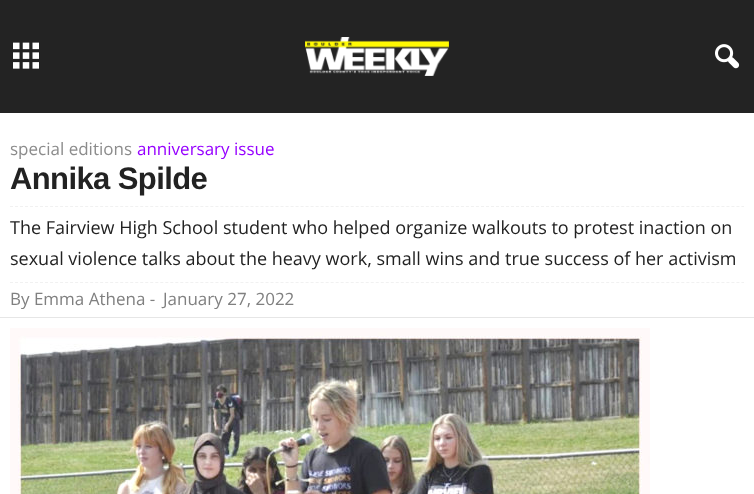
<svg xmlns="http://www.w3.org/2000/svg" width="754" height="494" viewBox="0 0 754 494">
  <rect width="100%" height="100%" fill="#232323"/>
  <image x="13" y="42" width="26" height="27" href="img/1.png"/>
  <image x="305" y="37" width="144" height="39" href="img/2.png"/>
  <image x="715" y="44" width="25" height="25" href="img/3.png"/>
  <path d="M0 113h754v381H0z" fill="#fff"/>
  <path d="M10 206.5H744" fill="none" stroke="#f1f1f1" stroke-dasharray="3 2.01"/>
  <path d="M10 282.5H744" fill="none" stroke="#f1f1f1" stroke-dasharray="3 2.01"/>
  <path d="M0 317h754v1H0z" fill="#e6e6e6"/>
  <image x="10" y="328" width="640" height="166" href="img/4.png"/>
  <text x="10" y="155" font-family="Open Sans" font-size="17" fill="#8c8c8c">special editions</text>
  <text x="137" y="155" font-family="Open Sans" font-size="17" fill="#9600ff">anniversary issue</text>
  <text x="10" y="189" font-family="Liberation Sans" font-size="31" font-weight="bold" letter-spacing="-0.6" fill="#222">Annika Spilde</text>
  <g font-family="Open Sans" font-size="18" fill="#222">
    <text x="10" y="234">The Fairview High School student who helped organize walkouts to protest inaction on</text>
    <text x="10" y="265">sexual violence talks about the heavy work, small wins and true success of her activism</text>
  </g>
  <g font-family="Open Sans" font-size="17" fill="#808080">
    <text x="10" y="305">By Emma Athena -</text>
    <text x="163" y="305">January 27, 2022</text>
  </g>
</svg>
